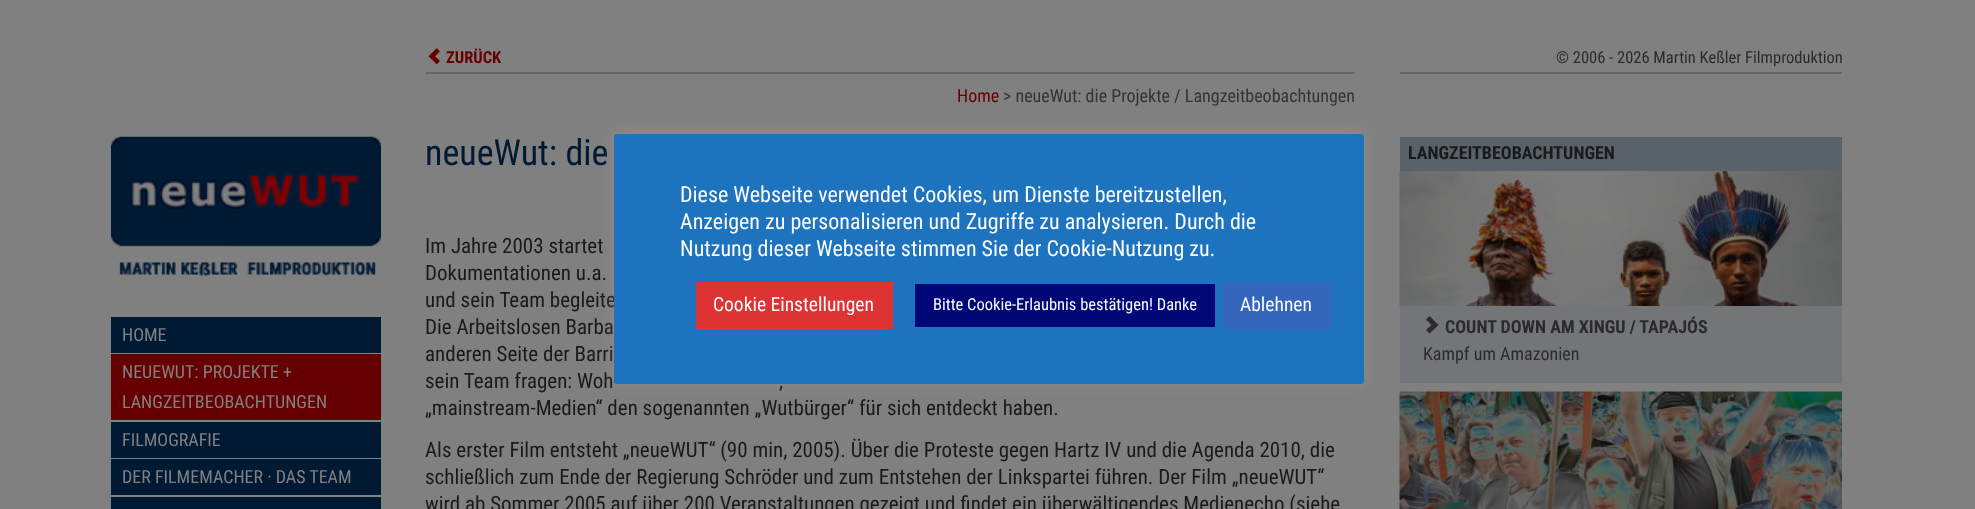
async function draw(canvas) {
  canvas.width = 1975;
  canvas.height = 509;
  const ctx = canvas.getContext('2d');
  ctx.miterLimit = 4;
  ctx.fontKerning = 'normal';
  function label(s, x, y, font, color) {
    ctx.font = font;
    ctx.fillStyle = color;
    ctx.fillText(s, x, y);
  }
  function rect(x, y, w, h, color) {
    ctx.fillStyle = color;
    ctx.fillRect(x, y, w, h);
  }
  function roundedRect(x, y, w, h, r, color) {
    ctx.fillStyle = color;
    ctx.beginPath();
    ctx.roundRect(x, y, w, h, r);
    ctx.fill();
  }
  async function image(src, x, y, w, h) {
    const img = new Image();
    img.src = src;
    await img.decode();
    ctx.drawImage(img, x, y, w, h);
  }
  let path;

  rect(0, 0, 1975, 509, '#808080');
  await image('assets/img1.png', 111, 136, 270, 140);
  rect(111, 317, 270, 36, '#001a34');
  label('HOME', 122, 341, '18px Roboto Condensed', '#808080');
  rect(111, 354, 270, 66, '#600');
  label('NEUEWUT: PROJEKTE +', 122, 378, '18px Roboto Condensed', '#808080');
  label('LANGZEITBEOBACHTUNGEN', 122, 408, '18px Roboto Condensed', '#808080');
  rect(111, 422, 270, 36, '#001a34');
  label('FILMOGRAFIE', 122, 446, '18px Roboto Condensed', '#808080');
  rect(111, 459, 270, 36, '#001a34');
  label('DER FILMEMACHER · DAS TEAM', 122, 483, '18px Roboto Condensed', '#808080');
  rect(111, 497, 270, 12, '#001a34');
  rect(426, 72, 929, 2, '#666');
  await image('assets/img2.png', 428, 48, 12, 17);
  label('ZURÜCK', 446, 63, 'bold 16.5px Roboto Condensed', '#600');
  label('Home', 957, 102, '18px Roboto Condensed', '#600');
  label('> neueWut: die Projekte / Langzeitbeobachtungen', 1003, 102, '18px Roboto Condensed', '#333');
  label('neueWut: die', 425, 165, '36px Roboto Condensed', '#001a34');
  label('Im Jahre 2003 startet', 425, 253, '21px Roboto Condensed', '#1a1a1a');
  label('Dokumentationen u.a.', 425, 280, '21px Roboto Condensed', '#1a1a1a');
  label('und sein Team begleite', 425, 307, '21px Roboto Condensed', '#1a1a1a');
  label('Die Arbeitslosen Barba', 425, 334, '21px Roboto Condensed', '#1a1a1a');
  label('anderen Seite der Barri', 425, 361, '21px Roboto Condensed', '#1a1a1a');
  label('sein Team fragen: Woh', 425, 388, '21px Roboto Condensed', '#1a1a1a');
  label(',', 779, 388, '21px Roboto Condensed', '#1a1a1a');
  label('„mainstream-Medien“ den sogenannten „Wutbürger“ für sich entdeckt haben.', 425, 415, '21px Roboto Condensed', '#1a1a1a');
  label('Als erster Film entsteht „neueWUT“ (90 min, 2005). Über die Proteste gegen Hartz IV und die Agenda 2010, die', 425, 457, '21px Roboto Condensed', '#1a1a1a');
  label('schließlich zum Ende der Regierung Schröder und zum Entstehen der Linkspartei führen. Der Film „neueWUT“', 425, 484, '21px Roboto Condensed', '#1a1a1a');
  label('wird ab Sommer 2005 auf über 200 Veranstaltungen gezeigt und findet ein überwältigendes Medienecho (siehe', 425, 511, '21px Roboto Condensed', '#1a1a1a');
  rect(1400, 72, 442, 2, '#666');
  label('© 2006 - 2026 Martin Keßler Filmproduktion', 1556, 63, '16.5px Roboto Condensed', '#2b2b2b');
  rect(1400, 137, 442, 34, '#596169');
  label('LANGZEITBEOBACHTUNGEN', 1408, 159, 'bold 18px Roboto Condensed', '#1a1a1a');
  rect(1400, 306, 442, 77, '#737578');
  await image('assets/img3.png', 1399, 171, 443, 135);
  ctx.fillStyle = '#2b2b2b';
  path = new Path2D('M1426 330L1431.5 325L1426 319.5L1429.5 316L1438.5 325L1429.5 333.5Z');
  ctx.fill(path);
  label('COUNT DOWN AM XINGU / TAPAJÓS', 1445, 333, 'bold 18px Roboto Condensed', '#2b2b2b');
  label('Kampf um Amazonien', 1423, 360, '18px Roboto Condensed', '#2b2b2b');
  await image('assets/img4.png', 1399, 391, 443, 118);
  ctx.fillStyle = '#acabab4d';
  ctx.filter = 'blur(7.5px)';
  ctx.beginPath();
  ctx.roundRect(614, 132, 750, 251, 3);
  ctx.fill();
  ctx.filter = 'none';
  roundedRect(614, 134, 750, 250, 3, '#1e73be');
  label('Diese Webseite verwendet Cookies, um Dienste bereitzustellen,', 680, 202, '22px Roboto Condensed', '#fcfcfc');
  label('Anzeigen zu personalisieren und Zugriffe zu analysieren. Durch die', 680, 229, '22px Roboto Condensed', '#fcfcfc');
  label('Nutzung dieser Webseite stimmen Sie der Cookie-Nutzung zu.', 680, 256, '22px Roboto Condensed', '#fcfcfc');
  rect(696, 282, 197, 47, '#d33');
  label('Cookie Einstellungen', 713, 311, '19.5px Roboto Condensed', '#fcfcfc');
  rect(915, 284, 300, 43, '#000777');
  label('Bitte Cookie-Erlaubnis bestätigen! Danke', 933, 310, '16.5px Roboto Condensed', '#fcfcfc');
  rect(1223, 282, 108, 47, '#3566bb');
  label('Ablehnen', 1240, 311, '19.5px Roboto Condensed', '#fcfcfc');
}

draw(document.querySelector('canvas'));
